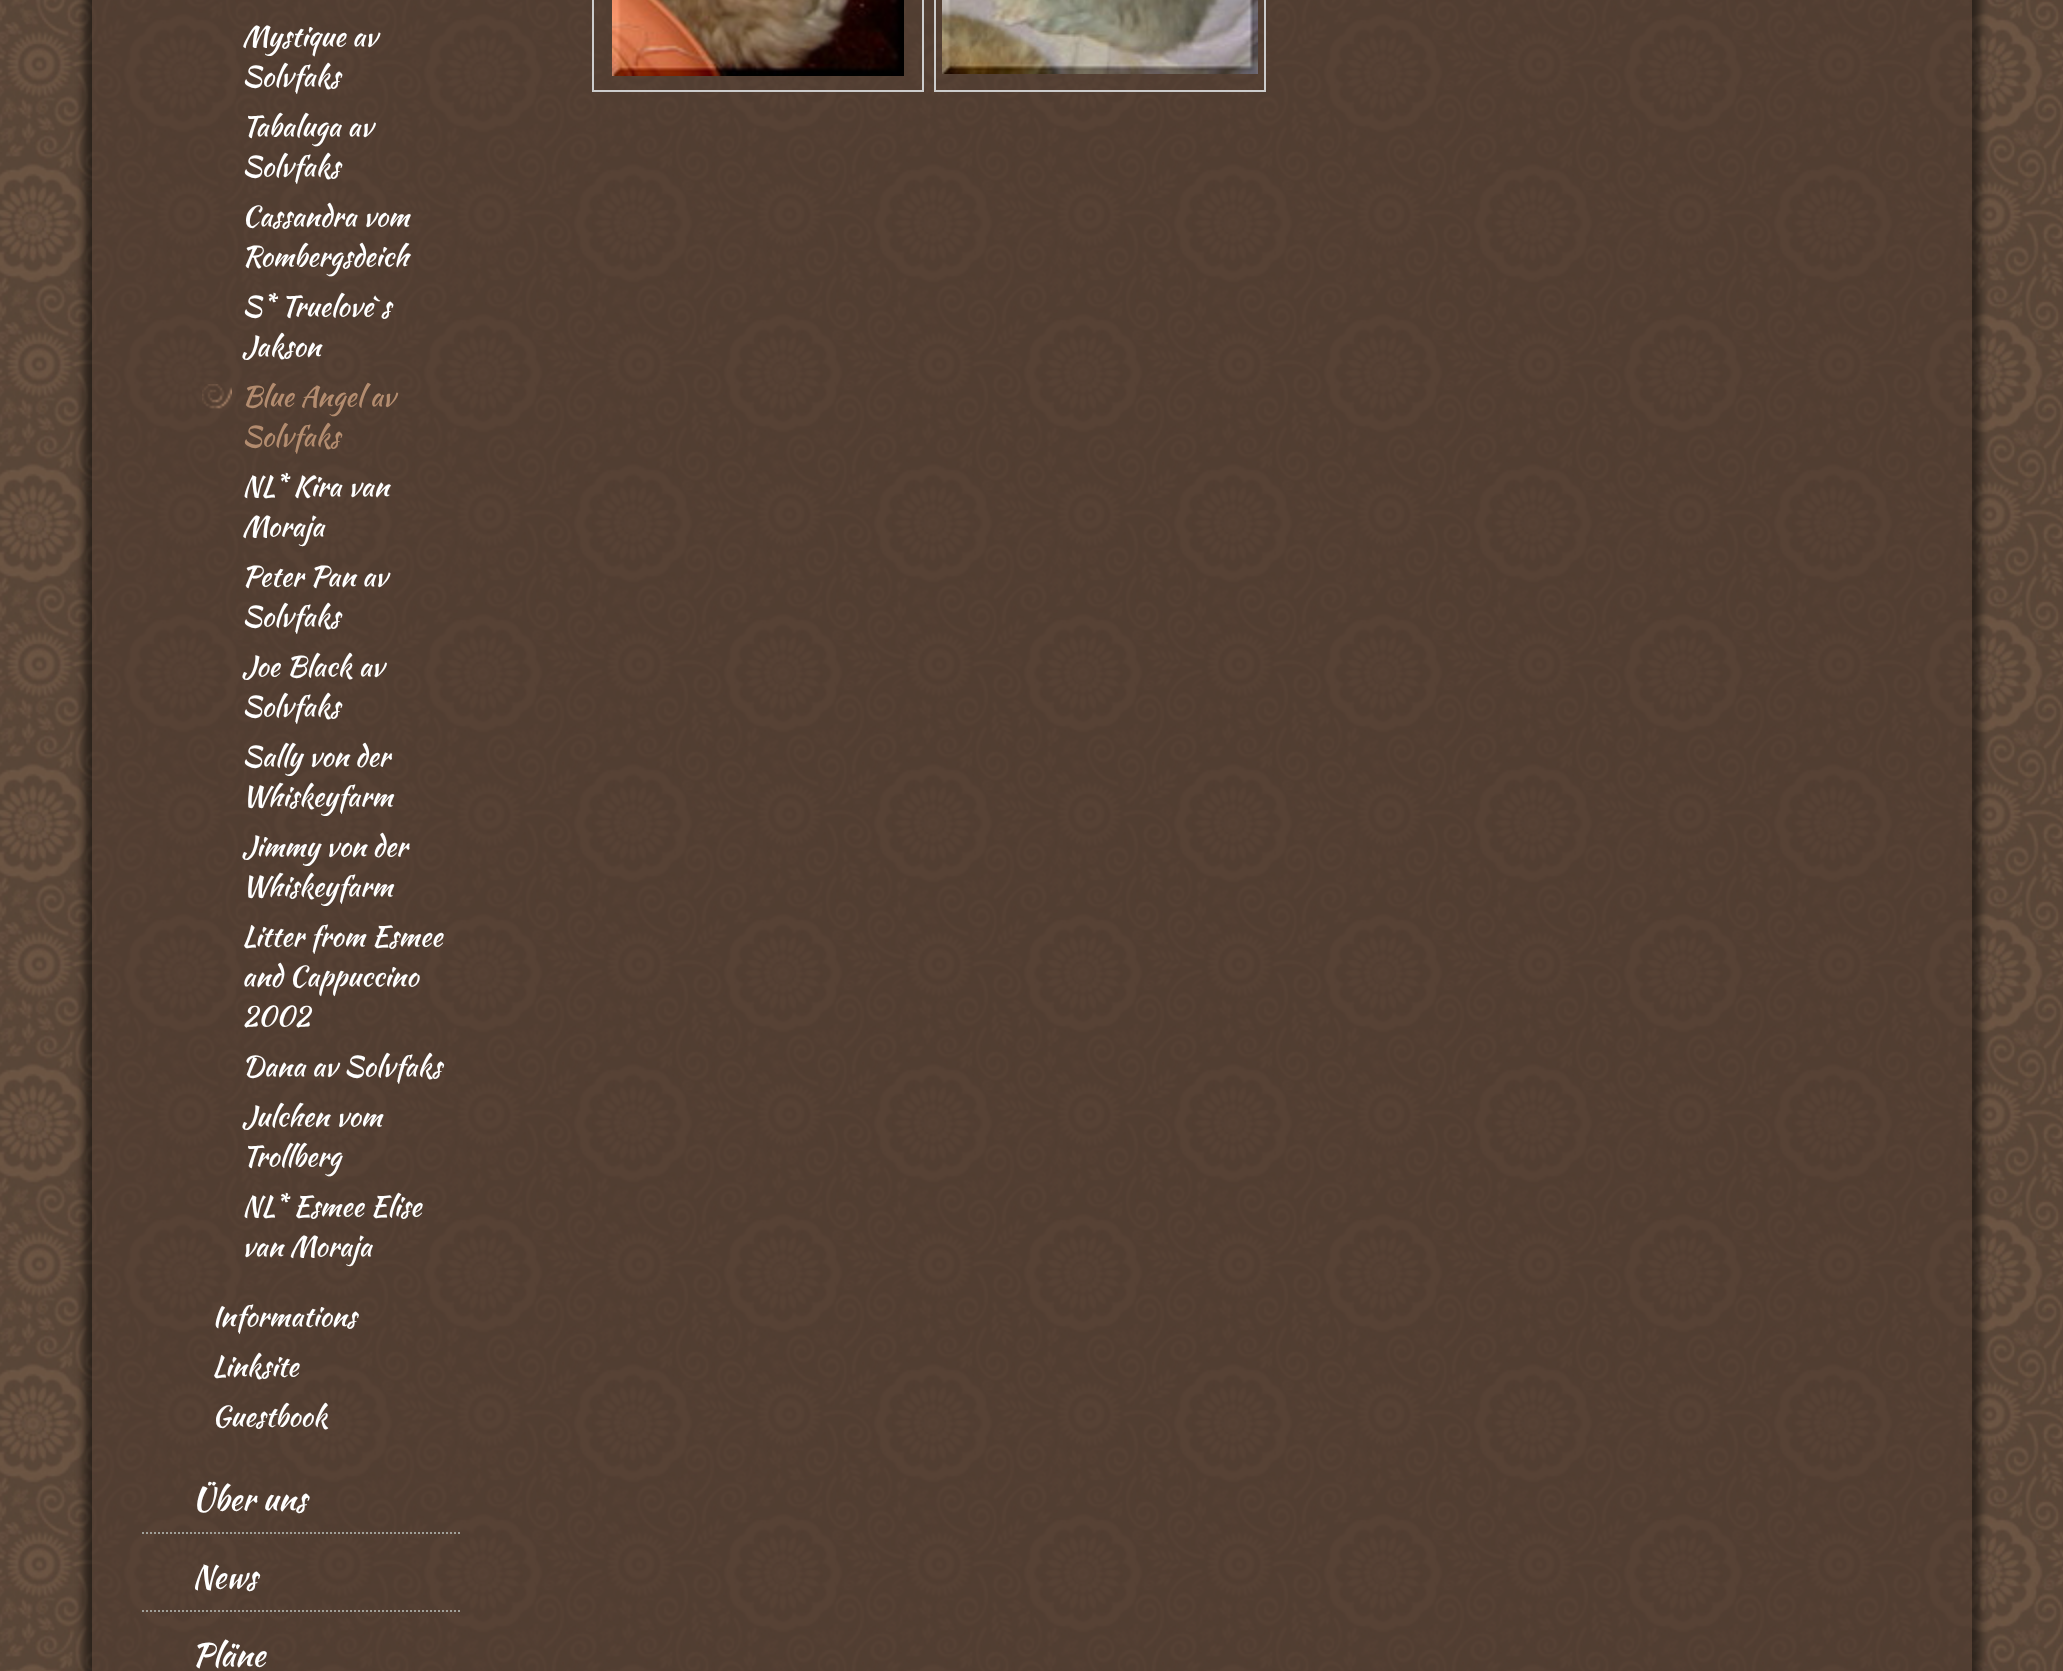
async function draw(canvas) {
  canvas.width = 2063;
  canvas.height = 1671;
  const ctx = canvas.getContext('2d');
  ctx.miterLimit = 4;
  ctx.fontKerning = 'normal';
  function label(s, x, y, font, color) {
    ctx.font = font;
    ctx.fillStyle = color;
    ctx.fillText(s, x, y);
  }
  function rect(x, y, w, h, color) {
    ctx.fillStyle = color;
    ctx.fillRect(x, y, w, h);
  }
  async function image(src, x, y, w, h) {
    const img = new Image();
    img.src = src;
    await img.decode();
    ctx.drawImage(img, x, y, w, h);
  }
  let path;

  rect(0, 0, 2063, 1671, '#fff');
  await image('assets/img1.png', 0, 0, 2063, 1671);
  ctx.save();
  path = new Path2D('M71 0H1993V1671H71ZM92-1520H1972V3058H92Z');
  ctx.clip(path, 'evenodd');
  ctx.fillStyle = '#00000080';
  ctx.filter = 'blur(4px)';
  ctx.beginPath();
  ctx.rect(84, -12, 1896, 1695);
  ctx.fill();
  ctx.filter = 'none';
  ctx.restore();
  label('Mystique av', 242, 46, '28px Kaushan Script', '#fff');
  label('Solvfaks', 242, 86, '28px Kaushan Script', '#fff');
  label('Tabaluga av', 242, 136, '28px Kaushan Script', '#fff');
  label('Solvfaks', 242, 176, '28px Kaushan Script', '#fff');
  label('Cassandra vom', 242, 226, '28px Kaushan Script', '#fff');
  label('Rombergsdeich', 242, 266, '28px Kaushan Script', '#fff');
  label('S* Truelove`s', 242, 316, '28px Kaushan Script', '#fff');
  label('Jakson', 242, 356, '28px Kaushan Script', '#fff');
  await image('assets/img2.png', 202, 384, 30, 25);
  label('Blue Angel av', 242, 406, '28px Kaushan Script', '#b38c6f');
  label('Solvfaks', 242, 446, '28px Kaushan Script', '#b38c6f');
  label('NL* Kira van', 242, 496, '28px Kaushan Script', '#fff');
  label('Moraja', 242, 536, '28px Kaushan Script', '#fff');
  label('Peter Pan av', 242, 586, '28px Kaushan Script', '#fff');
  label('Solvfaks', 242, 626, '28px Kaushan Script', '#fff');
  label('Joe Black av', 242, 676, '28px Kaushan Script', '#fff');
  label('Solvfaks', 242, 716, '28px Kaushan Script', '#fff');
  label('Sally von der', 242, 766, '28px Kaushan Script', '#fff');
  label('Whiskeyfarm', 242, 806, '28px Kaushan Script', '#fff');
  label('Jimmy von der', 242, 856, '28px Kaushan Script', '#fff');
  label('Whiskeyfarm', 242, 896, '28px Kaushan Script', '#fff');
  label('Litter from Esmee', 242, 946, '28px Kaushan Script', '#fff');
  label('and Cappuccino', 242, 986, '28px Kaushan Script', '#fff');
  label('2002', 242, 1026, '28px Kaushan Script', '#fff');
  label('Dana av Solvfaks', 242, 1076, '28px Kaushan Script', '#fff');
  label('Julchen vom', 242, 1126, '28px Kaushan Script', '#fff');
  label('Trollberg', 242, 1166, '28px Kaushan Script', '#fff');
  label('NL* Esmee Elise', 242, 1216, '28px Kaushan Script', '#fff');
  label('van Moraja', 242, 1256, '28px Kaushan Script', '#fff');
  label('Informations', 212, 1326, '28px Kaushan Script', '#fff');
  label('Linksite', 212, 1376, '28px Kaushan Script', '#fff');
  label('Guestbook', 212, 1426, '28px Kaushan Script', '#fff');
  path = new Path2D('M142 1533H462');
  ctx.strokeStyle = '#a1a099';
  ctx.lineWidth = 2;
  ctx.setLineDash([2, 2]);
  ctx.stroke(path);
  label('Über uns', 192, 1510, '32px Kaushan Script', '#fff');
  path = new Path2D('M142 1611H462');
  ctx.stroke(path);
  label('News', 192, 1588, '32px Kaushan Script', '#fff');
  label('Pläne', 192, 1666, '32px Kaushan Script', '#fff');
  ctx.strokeStyle = '#ccc';
  ctx.setLineDash([]);
  ctx.strokeRect(593, -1, 330, 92);
  await image('assets/img3.png', 612, 0, 292, 76);
  ctx.strokeRect(935, -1, 330, 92);
  await image('assets/img4.png', 942, 0, 316, 74);
}

draw(document.querySelector('canvas'));
